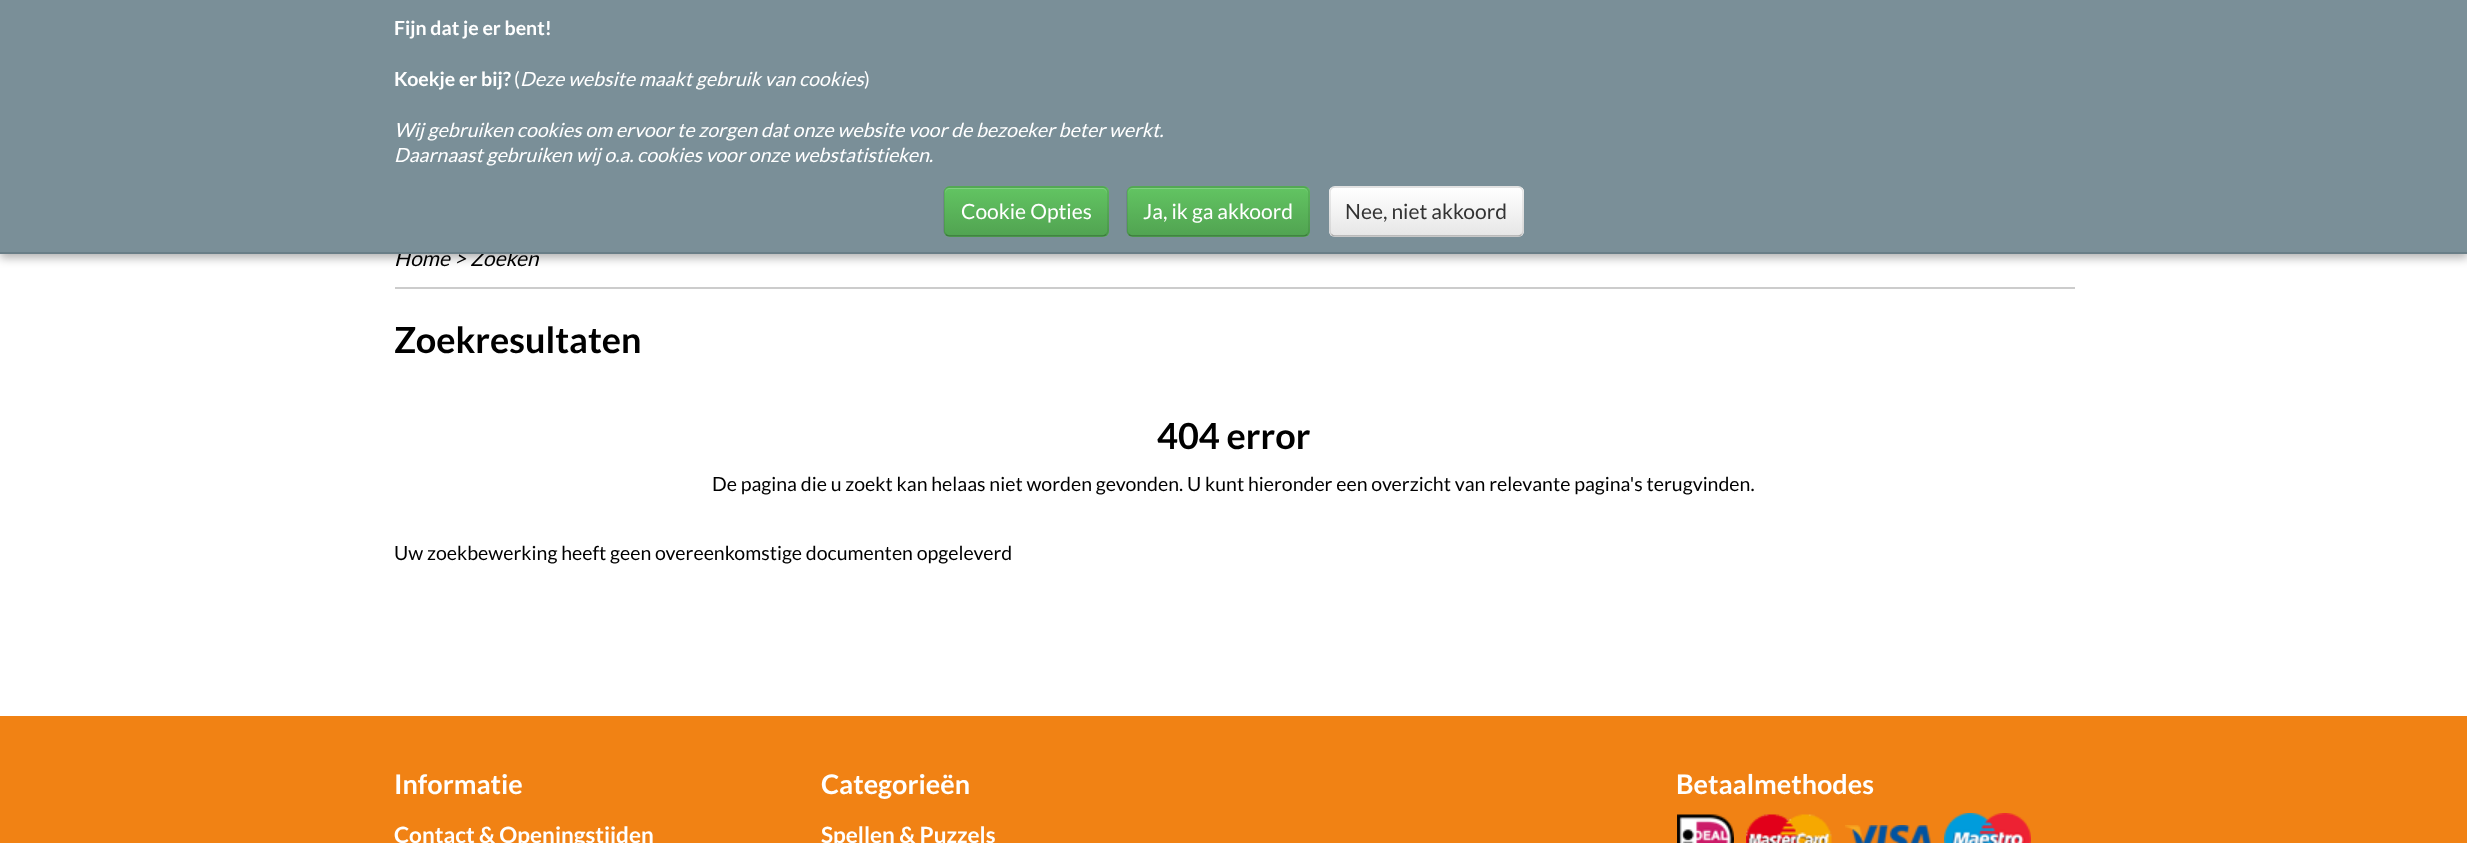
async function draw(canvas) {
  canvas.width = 2467;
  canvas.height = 843;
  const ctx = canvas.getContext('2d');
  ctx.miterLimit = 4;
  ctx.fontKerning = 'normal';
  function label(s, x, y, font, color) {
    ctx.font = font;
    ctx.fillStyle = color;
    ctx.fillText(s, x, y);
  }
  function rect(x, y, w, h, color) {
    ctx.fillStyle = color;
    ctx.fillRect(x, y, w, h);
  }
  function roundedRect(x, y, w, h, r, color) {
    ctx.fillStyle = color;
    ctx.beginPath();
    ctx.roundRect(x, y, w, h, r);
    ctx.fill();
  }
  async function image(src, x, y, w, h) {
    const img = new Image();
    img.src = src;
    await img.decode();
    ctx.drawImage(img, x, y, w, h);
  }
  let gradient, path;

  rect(0, 0, 2467, 843, '#fff');
  ctx.fillStyle = '#0000004d';
  ctx.filter = 'blur(5px)';
  ctx.beginPath();
  ctx.rect(0, 5, 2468, 253);
  ctx.fill();
  ctx.filter = 'none';
  label('Home > Zoeken', 394, 266, 'italic 21px Lato', '#000');
  rect(0, 0, 2467, 252, '#7a8f98');
  rect(0, 252, 2467, 2, '#697e87');
  label('Fijn dat je er bent!', 394, 35, 'bold 19.5px Lato', '#fff');
  label('Koekje er bij?', 394, 86, 'bold 19.5px Lato', '#fff');
  label('(', 514, 86, '19.5px Lato', '#fff');
  label('Deze website maakt gebruik van cookies', 520, 86, 'italic 19.5px Lato', '#fff');
  label(')', 864, 86, '19.5px Lato', '#fff');
  label('Wij gebruiken cookies om ervoor te zorgen dat onze website voor de bezoeker beter werkt.', 394, 137, 'italic 19.5px Lato', '#fff');
  label('Daarnaast gebruiken wij o.a. cookies voor onze webstatistieken.', 394, 162, 'italic 19.5px Lato', '#fff');
  roundedRect(944, 186, 165, 51, 6, '#5bb75b');
  ctx.save();
  ctx.beginPath();
  ctx.roundRect(944, 186, 165, 51, 6);
  ctx.clip();
  gradient = ctx.createLinearGradient(1026, 188, 1026, 236);
  gradient.addColorStop(0, '#62c462');
  gradient.addColorStop(1, '#51a351');
  ctx.fillStyle = gradient;
  ctx.fillRect(944, 188, 165, 48);
  ctx.restore();
  ctx.fillStyle = '#81d081';
  path = new Path2D('M950 189H1102C1105 189 1107 191 1107 194V193C1107 190 1105 188 1102 188H950C947 188 945 190 945 193V194C945 191 947 189 950 189Z');
  ctx.fill(path);
  path = new Path2D('M1106 234.5C1105 235.5 1104 236 1102.5 236H949.5C948 236 947 235.5 946 234.5');
  ctx.strokeStyle = '#00000040';
  ctx.lineWidth = 1.5;
  ctx.stroke(path);
  path = new Path2D('M946 234.5C945 233.5 944 232.5 944 231V192C944 190.5 945 189.5 946 188.5C947 187.5 948 187 949.5 187H1102.5C1104 187 1105 187.5 1106 188.5C1107 189.5 1108 190.5 1108 192V231C1108 232.5 1107 233.5 1106 234.5');
  ctx.strokeStyle = '#0000001a';
  ctx.stroke(path);
  label('Cookie Opties', 961, 219, '21px Lato', '#fff');
  roundedRect(1127, 186, 183, 51, 6, '#5bb75b');
  ctx.save();
  ctx.beginPath();
  ctx.roundRect(1127, 186, 183, 51, 6);
  ctx.clip();
  gradient = ctx.createLinearGradient(1218, 188, 1218, 236);
  gradient.addColorStop(0, '#62c462');
  gradient.addColorStop(1, '#51a351');
  ctx.fillStyle = gradient;
  ctx.fillRect(1127, 188, 183, 48);
  ctx.restore();
  ctx.fillStyle = '#81d081';
  path = new Path2D('M1132 189H1304C1306 189 1308 191 1308 194C1308 191 1307 189 1304 188H1133C1130 188 1128 191 1128 194C1128 191 1130 189 1132 189Z');
  ctx.fill(path);
  path = new Path2D('M1307 234.5C1306 235.5 1305 236 1303.5 236H1132.5C1131 236 1130 235.5 1129 234.5');
  ctx.strokeStyle = '#00000040';
  ctx.stroke(path);
  path = new Path2D('M1129 234.5C1128 233.5 1127 232.5 1127 231V192C1127 190.5 1128 189.5 1129 188.5C1130 187.5 1131 187 1132.5 187H1303.5C1305 187 1306 187.5 1307 188.5C1308 189.5 1309 190.5 1309 192V231C1309 232.5 1308 233.5 1307 234.5');
  ctx.strokeStyle = '#0000001a';
  ctx.stroke(path);
  label('Ja, ik ga akkoord', 1143, 219, '21px Lato', '#fff');
  roundedRect(1329, 186, 195, 51, 6, '#f5f5f5');
  ctx.save();
  ctx.beginPath();
  ctx.roundRect(1329, 186, 195, 51, 6);
  ctx.clip();
  gradient = ctx.createLinearGradient(1427, 188, 1427, 236);
  gradient.addColorStop(0, '#fff');
  gradient.addColorStop(1, '#e6e6e6');
  ctx.fillStyle = gradient;
  ctx.fillRect(1329, 188, 195, 48);
  ctx.restore();
  ctx.fillStyle = '#ffffff33';
  path = new Path2D('M1335 189H1518C1520 189 1522 191 1522 194V232L1521 235C1522 234 1523 232 1523 231V193C1523 190 1521 188 1518 188H1336C1334 188 1333 189 1332 190Z');
  ctx.fill(path);
  path = new Path2D('M1521.5 234.5C1520.5 235.5 1519.5 236 1518 236H1335C1333.5 236 1332.5 235.5 1331.5 234.5');
  ctx.strokeStyle = '#00000040';
  ctx.stroke(path);
  path = new Path2D('M1331.5 234.5C1330.5 233.5 1330 232.5 1330 231V192C1330 190.5 1330.5 189.5 1331.5 188.5C1332.5 187.5 1333.5 187 1335 187H1518C1519.5 187 1520.5 187.5 1521.5 188.5C1522.5 189.5 1523 190.5 1523 192V231C1523 232.5 1522.5 233.5 1521.5 234.5');
  ctx.strokeStyle = '#0000001a';
  ctx.stroke(path);
  label('Nee, niet akkoord', 1345, 219, '21px Lato', '#333');
  rect(395, 287, 1680, 2, '#ccc');
  label('Zoekresultaten', 394, 353, 'bold 36px Lato', '#000');
  label('404 error', 1157, 449, 'bold 36px Lato', '#000');
  label('De pagina die u zoekt kan helaas niet worden gevonden. U kunt hieronder een overzicht van relevante pagina\'s terugvinden.', 712, 491, '19.5px Lato', '#000');
  label('Uw zoekbewerking heeft geen overeenkomstige documenten opgeleverd', 394, 560, '19.5px Lato', '#000');
  rect(0, 716, 2467, 127, '#f18214');
  label('Informatie', 394, 794, 'bold 27px Lato', '#fff');
  label('Contact & Openingstijden', 394, 843, 'bold 22.5px Lato', '#fff');
  label('Categorieën', 821, 794, 'bold 27px Lato', '#fff');
  label('Spellen & Puzzels', 821, 843, 'bold 22.5px Lato', '#fff');
  label('Betaalmethodes', 1676, 794, 'bold 27px Lato', '#fff');
  await image('assets/img1.png', 1677, 814, 57, 29);
  await image('assets/img2.png', 1746, 814, 86, 29);
  await image('assets/img3.png', 1845, 825, 87, 18);
  await image('assets/img4.png', 1944, 813, 87, 30);
}

draw(document.querySelector('canvas'));
